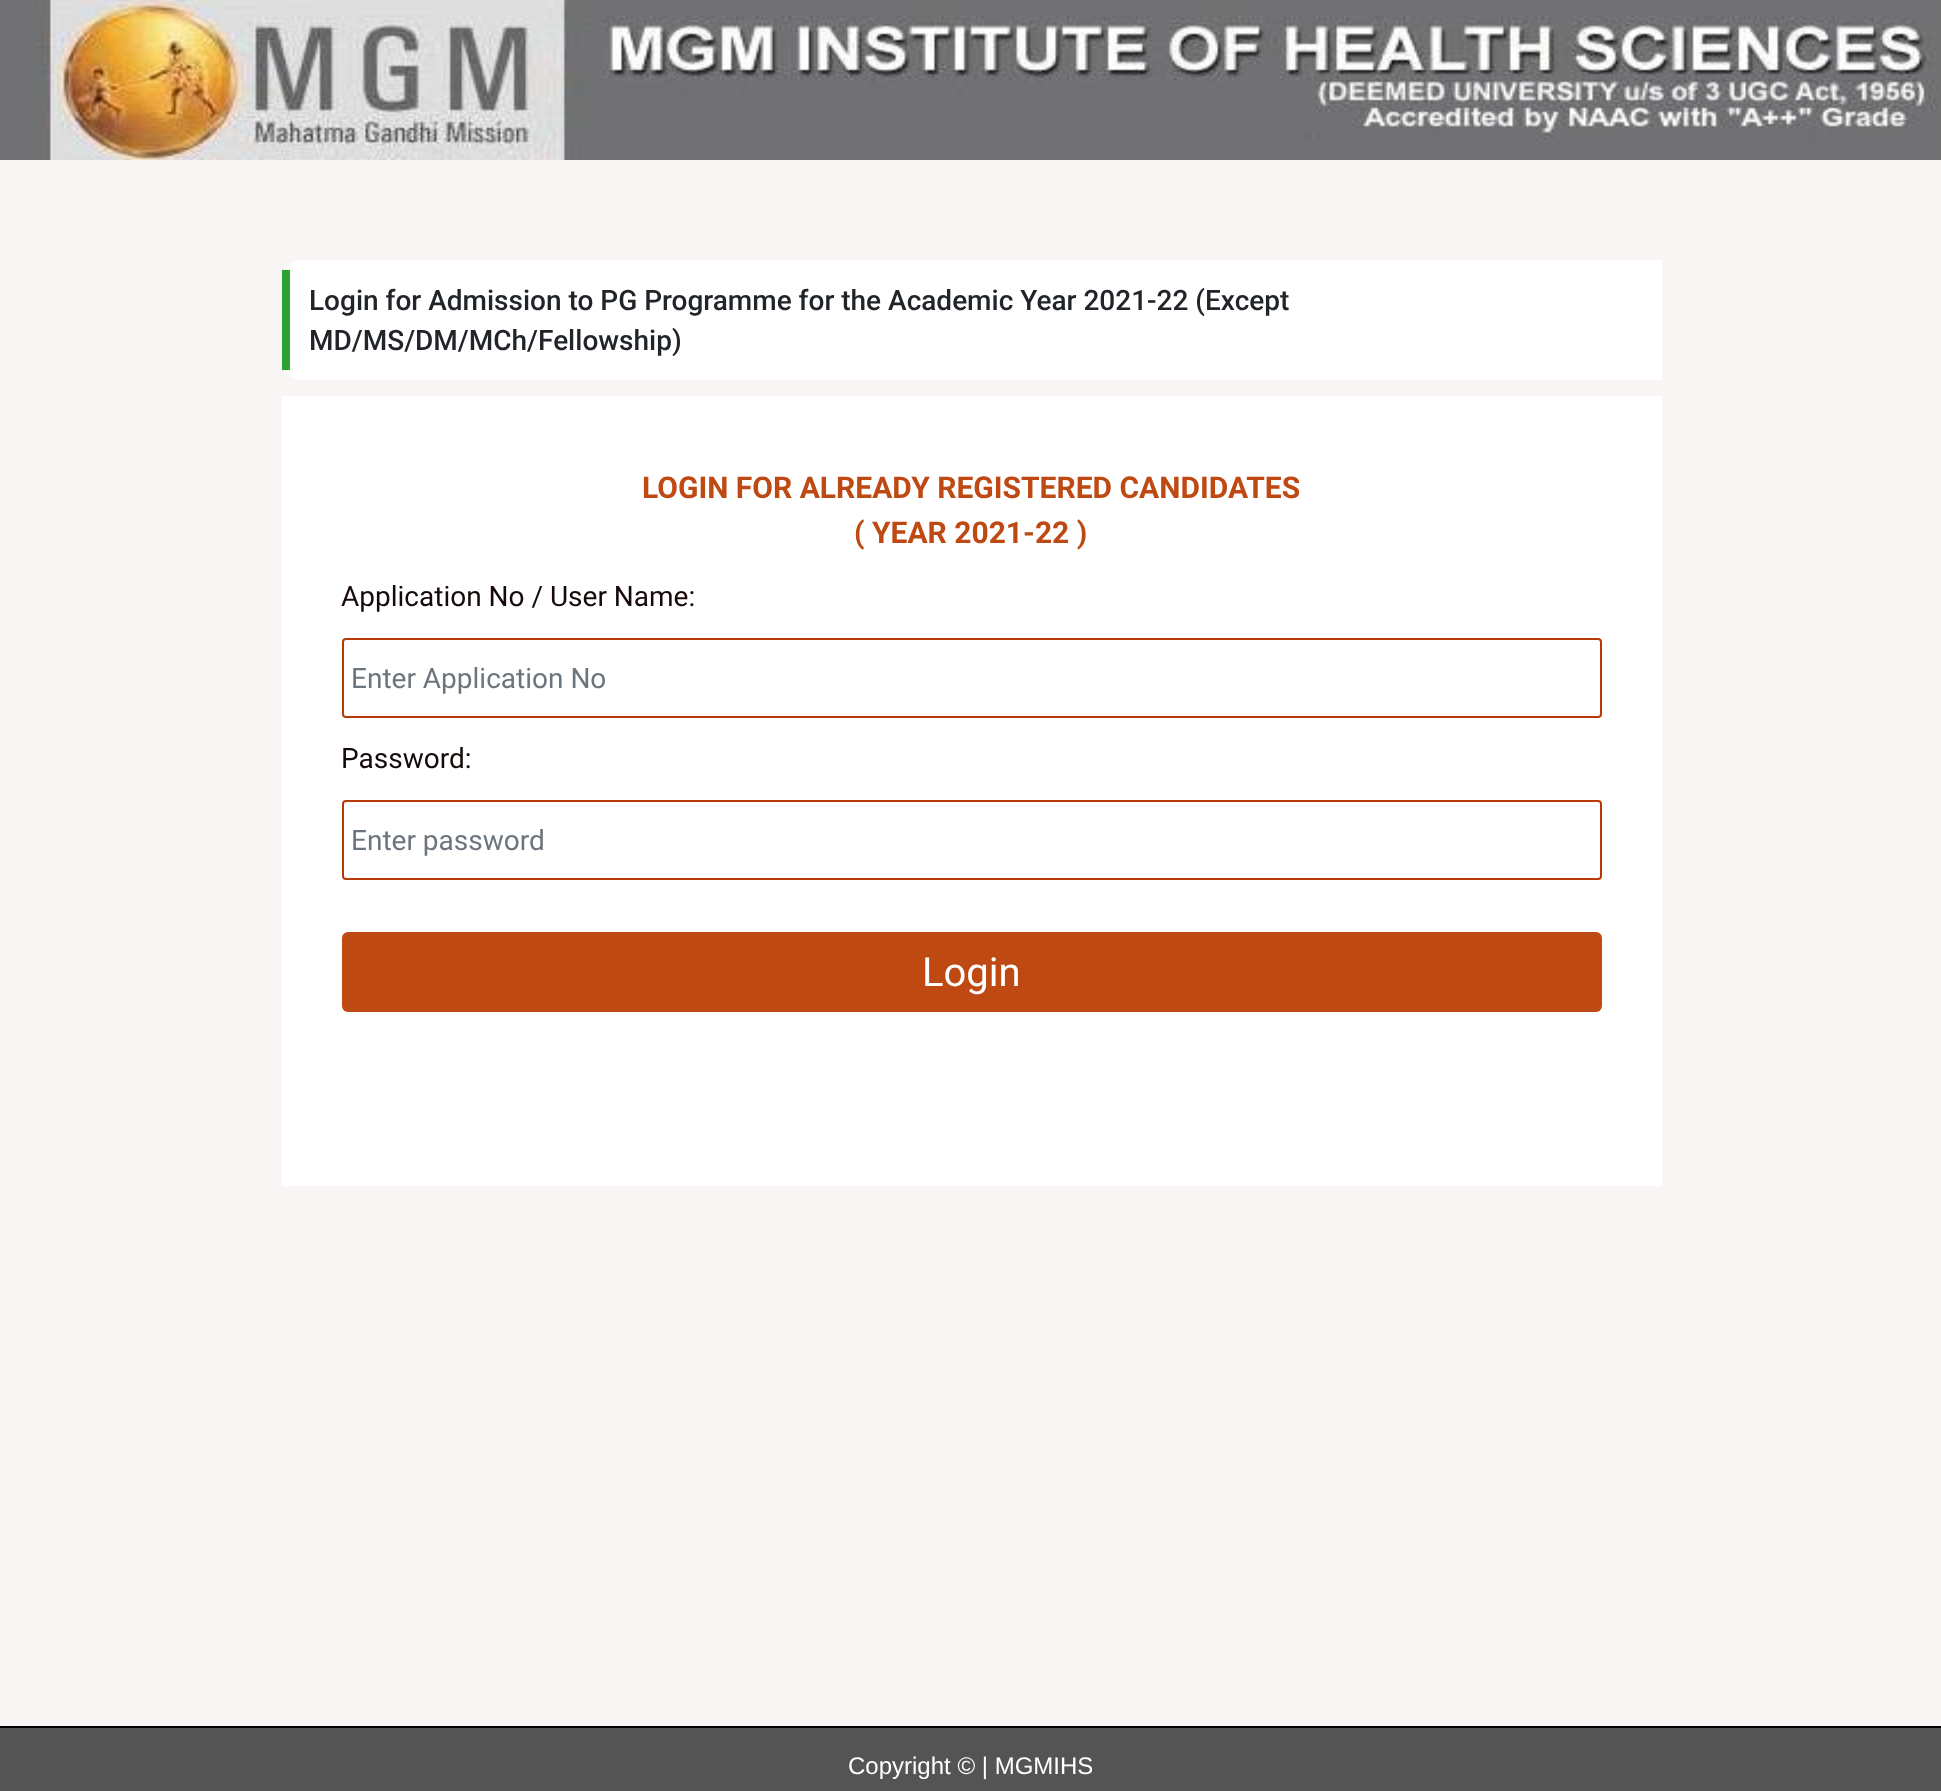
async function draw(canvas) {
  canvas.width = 1941;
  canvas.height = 1791;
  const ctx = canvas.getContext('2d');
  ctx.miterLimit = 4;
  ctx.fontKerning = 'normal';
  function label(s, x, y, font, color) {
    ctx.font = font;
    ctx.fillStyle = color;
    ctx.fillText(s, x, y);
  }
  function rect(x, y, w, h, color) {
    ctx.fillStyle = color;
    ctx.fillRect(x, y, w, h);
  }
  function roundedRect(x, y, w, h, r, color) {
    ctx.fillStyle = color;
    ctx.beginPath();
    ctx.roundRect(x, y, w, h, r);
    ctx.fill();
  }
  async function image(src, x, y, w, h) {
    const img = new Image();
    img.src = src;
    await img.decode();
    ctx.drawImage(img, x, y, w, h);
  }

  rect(0, 0, 1941, 1791, '#f9f5f5');
  await image('assets/img1.png', 0, 0, 1941, 160);
  ctx.fillStyle = '#fff';
  ctx.beginPath();
  ctx.roundRect(282, 260, 1380, 120, [20, 0, 0, 20]);
  ctx.fill();
  rect(282, 270, 8, 100, '#2aa32f');
  label('Login for Admission to PG Programme for the Academic Year 2021-22 (Except', 309, 310, '500 28px Roboto', '#212529');
  label('MD/MS/DM/MCh/Fellowship)', 309, 350, '500 28px Roboto', '#212529');
  rect(282, 396, 1380, 790, '#fff');
  label('LOGIN FOR ALREADY REGISTERED CANDIDATES', 642, 498, 'bold 30px Roboto', '#be4912');
  label('( YEAR 2021-22 )', 854, 543, 'bold 30px Roboto', '#be4912');
  label('Application No / User Name:', 341, 606, '28px Roboto', '#170909');
  ctx.beginPath();
  ctx.roundRect(343, 639, 1258, 78, 3);
  ctx.strokeStyle = '#b83806';
  ctx.lineWidth = 2;
  ctx.stroke();
  label('Enter Application No', 351, 688, '28px Roboto', '#6c757d');
  label('Password:', 341, 768, '28px Roboto', '#170909');
  ctx.beginPath();
  ctx.roundRect(343, 801, 1258, 78, 3);
  ctx.stroke();
  label('Enter password', 351, 850, '28px Roboto', '#6c757d');
  roundedRect(342, 932, 1260, 80, 6, '#be4912');
  label('Login', 922, 986, '40px Roboto', '#fff');
  rect(0, 1728, 1941, 63, '#545454');
  rect(0, 1726, 1941, 2, '#000');
  label('Copyright © | MGMIHS', 848, 1774, '24px Liberation Sans', '#fff');
}

draw(document.querySelector('canvas'));
